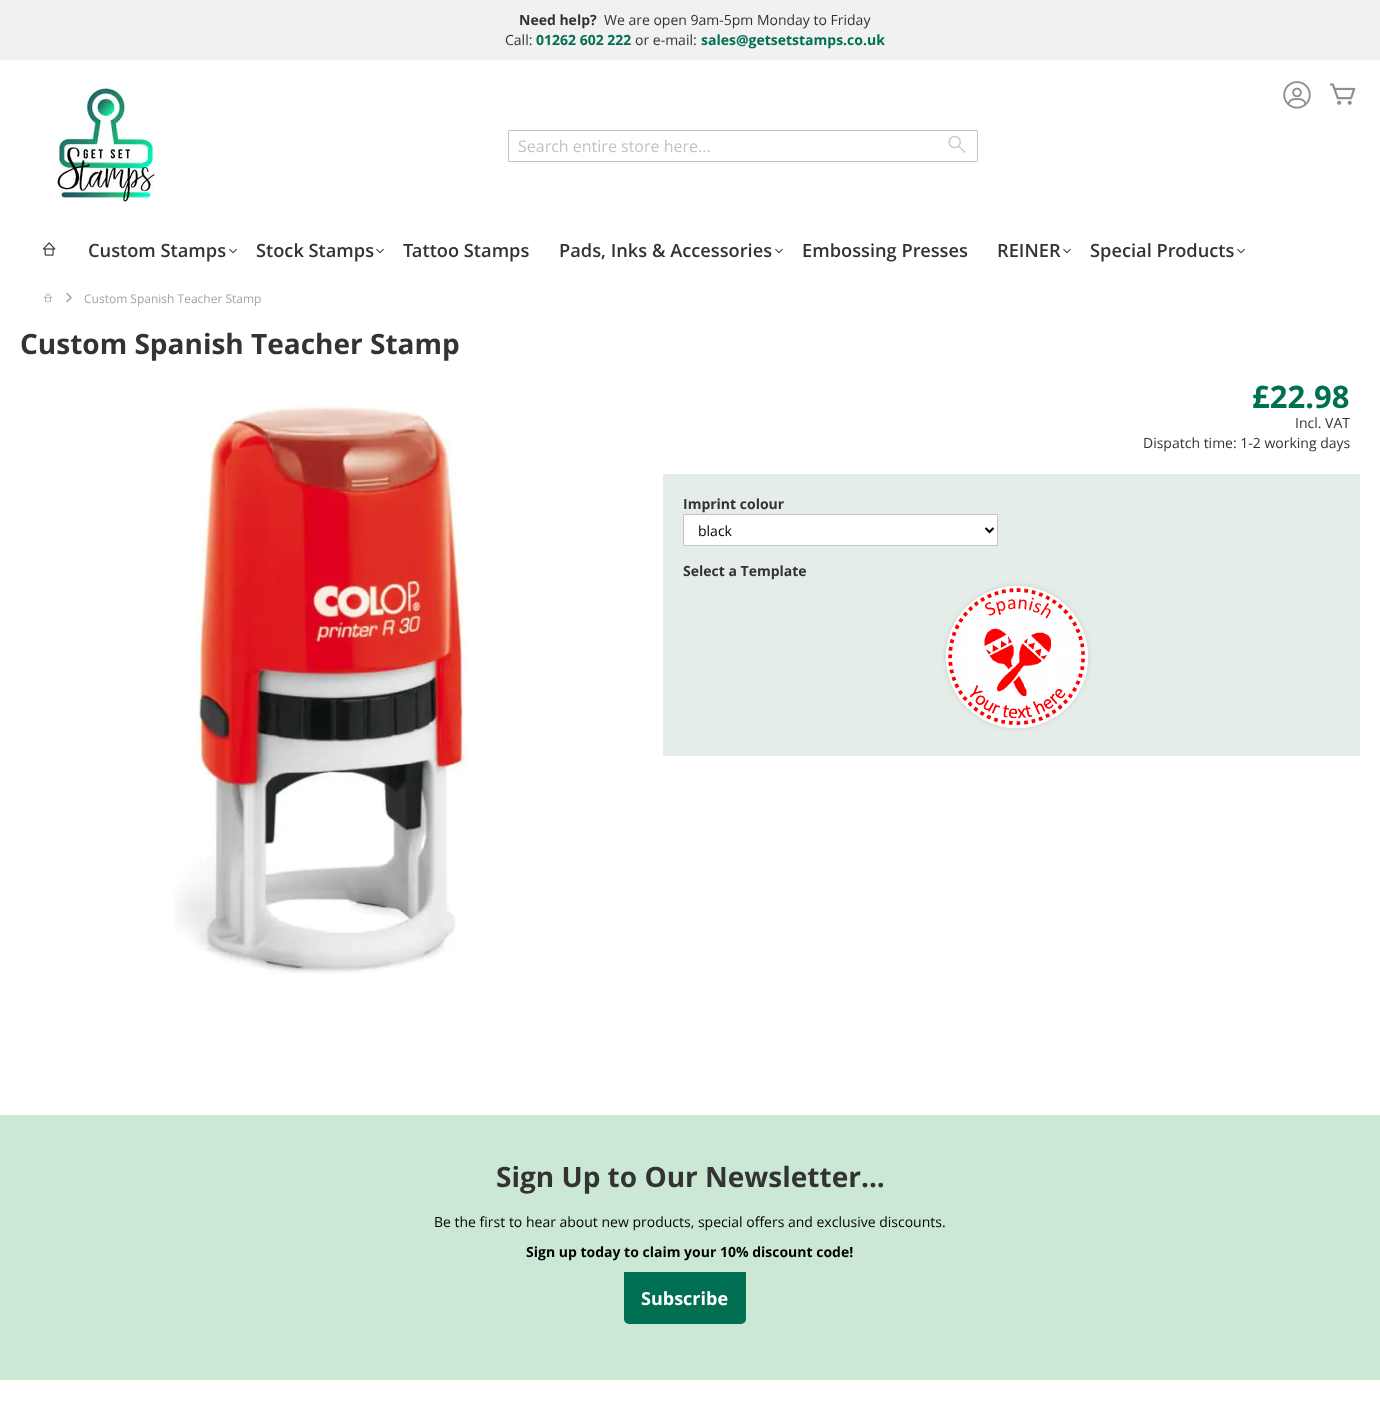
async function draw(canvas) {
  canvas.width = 1380;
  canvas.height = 1428;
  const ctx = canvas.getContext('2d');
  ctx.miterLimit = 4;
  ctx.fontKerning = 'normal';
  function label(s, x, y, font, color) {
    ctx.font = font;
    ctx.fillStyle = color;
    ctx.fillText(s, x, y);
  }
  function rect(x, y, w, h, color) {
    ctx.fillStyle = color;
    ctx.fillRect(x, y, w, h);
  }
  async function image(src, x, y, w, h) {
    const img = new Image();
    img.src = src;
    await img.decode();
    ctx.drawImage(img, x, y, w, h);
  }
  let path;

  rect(0, 0, 1380, 1428, '#fff');
  rect(0, 0, 1380, 60, '#f1f1f1');
  label('Need help?', 519, 25, 'bold 14px Open Sans', '#333');
  label('We are open 9am-5pm Monday to Friday', 604, 25, '14px Open Sans', '#333');
  label('Call:', 505, 45, '14px Open Sans', '#333');
  label('01262 602 222', 536, 45, 'bold 14px Open Sans', '#006f52');
  label('or e-mail:', 635, 45, '14px Open Sans', '#333');
  label('sales@getsetstamps.co.uk', 701, 45, 'bold 14px Open Sans', '#006f52');
  await image('assets/img1.png', 57, 87, 101, 117);
  ctx.beginPath();
  ctx.roundRect(508.5, 130.5, 469, 31, 0.5);
  ctx.strokeStyle = '#c2c2c2';
  ctx.stroke();
  label('Search entire store here...', 518, 152, '16px Open Sans', '#c2c2c2');
  await image('assets/img2.png', 948, 135, 18, 18);
  await image('assets/img3.png', 1283, 81, 28, 28);
  await image('assets/img4.png', 1329, 83, 27, 22);
  await image('assets/img5.png', 42, 242, 14, 14);
  label('Custom Stamps', 88, 257, '600 18.25px Open Sans', '#333');
  await image('assets/img6.png', 229, 248, 8, 6);
  label('Stock Stamps', 256, 257, '600 18.25px Open Sans', '#333');
  await image('assets/img6.png', 376, 248, 8, 6);
  label('Tattoo Stamps', 403, 257, '600 18.25px Open Sans', '#333');
  label('Pads, Inks & Accessories', 559, 257, '600 18.25px Open Sans', '#333');
  await image('assets/img6.png', 775, 248, 8, 6);
  label('Embossing Presses', 802, 257, '600 18.25px Open Sans', '#333');
  label('REINER', 997, 257, '600 18.25px Open Sans', '#333');
  await image('assets/img6.png', 1063, 248, 8, 6);
  label('Special Products', 1090, 257, '600 18.25px Open Sans', '#333');
  await image('assets/img6.png', 1237, 248, 8, 6);
  await image('assets/img7.png', 43, 293, 10, 10);
  await image('assets/img8.png', 66, 292, 6, 11);
  label('Custom Spanish Teacher Stamp', 84, 303, '12px Open Sans', '#a3a3a3');
  label('Custom Spanish Teacher Stamp', 20, 354, 'bold 28px Open Sans', '#333');
  await image('assets/img9.png', 174, 406, 293, 568);
  label('£22.98', 1252, 408, 'bold 31px Open Sans', '#006f52');
  label('Incl. VAT', 1295, 428, '14px Open Sans', '#333');
  label('Dispatch time: 1-2 working days', 1143, 448, '14px Open Sans', '#333');
  rect(663, 474, 697, 282, '#e4ede7');
  label('Imprint colour', 683, 509, 'bold 14px Open Sans', '#333');
  ctx.fillStyle = '#fff';
  ctx.beginPath();
  ctx.roundRect(683.5, 514.5, 314, 31, 0.5);
  ctx.fill();
  ctx.stroke();
  path = new Path2D('M985.5 528L989.5 532L993.5 528');
  ctx.strokeStyle = '#000';
  ctx.lineWidth = 2;
  ctx.stroke(path);
  label('black', 698, 536, '14px Open Sans', '#000');
  label('Select a Template', 683, 576, 'bold 14px Open Sans', '#333');
  ctx.fillStyle = '#ccc';
  ctx.filter = 'blur(2.5px)';
  ctx.beginPath();
  ctx.roundRect(946, 586, 142, 142, 71);
  ctx.fill();
  ctx.filter = 'none';
  ctx.fillStyle = '#fff';
  ctx.beginPath();
  ctx.arc(1017, 657, 71, 0, 2 * Math.PI);
  ctx.fill();
  await image('assets/img10.png', 946, 586, 142, 142);
  rect(0, 1115, 1380, 265, '#cae8d4');
  label('Sign Up to Our Newsletter...', 496, 1187, 'bold 28px Open Sans', '#333');
  label('Be the first to hear about new products, special offers and exclusive discounts.', 434, 1227, '14px Open Sans', '#000');
  label('Sign up today to claim your 10% discount code!', 526, 1257, 'bold 14px Open Sans', '#000');
  ctx.fillStyle = '#006f52';
  ctx.beginPath();
  ctx.roundRect(624, 1272, 122, 52, [0, 0, 5, 5]);
  ctx.fill();
  label('Subscribe', 641, 1305, 'bold 18px Open Sans', '#fff');
}

draw(document.querySelector('canvas'));
